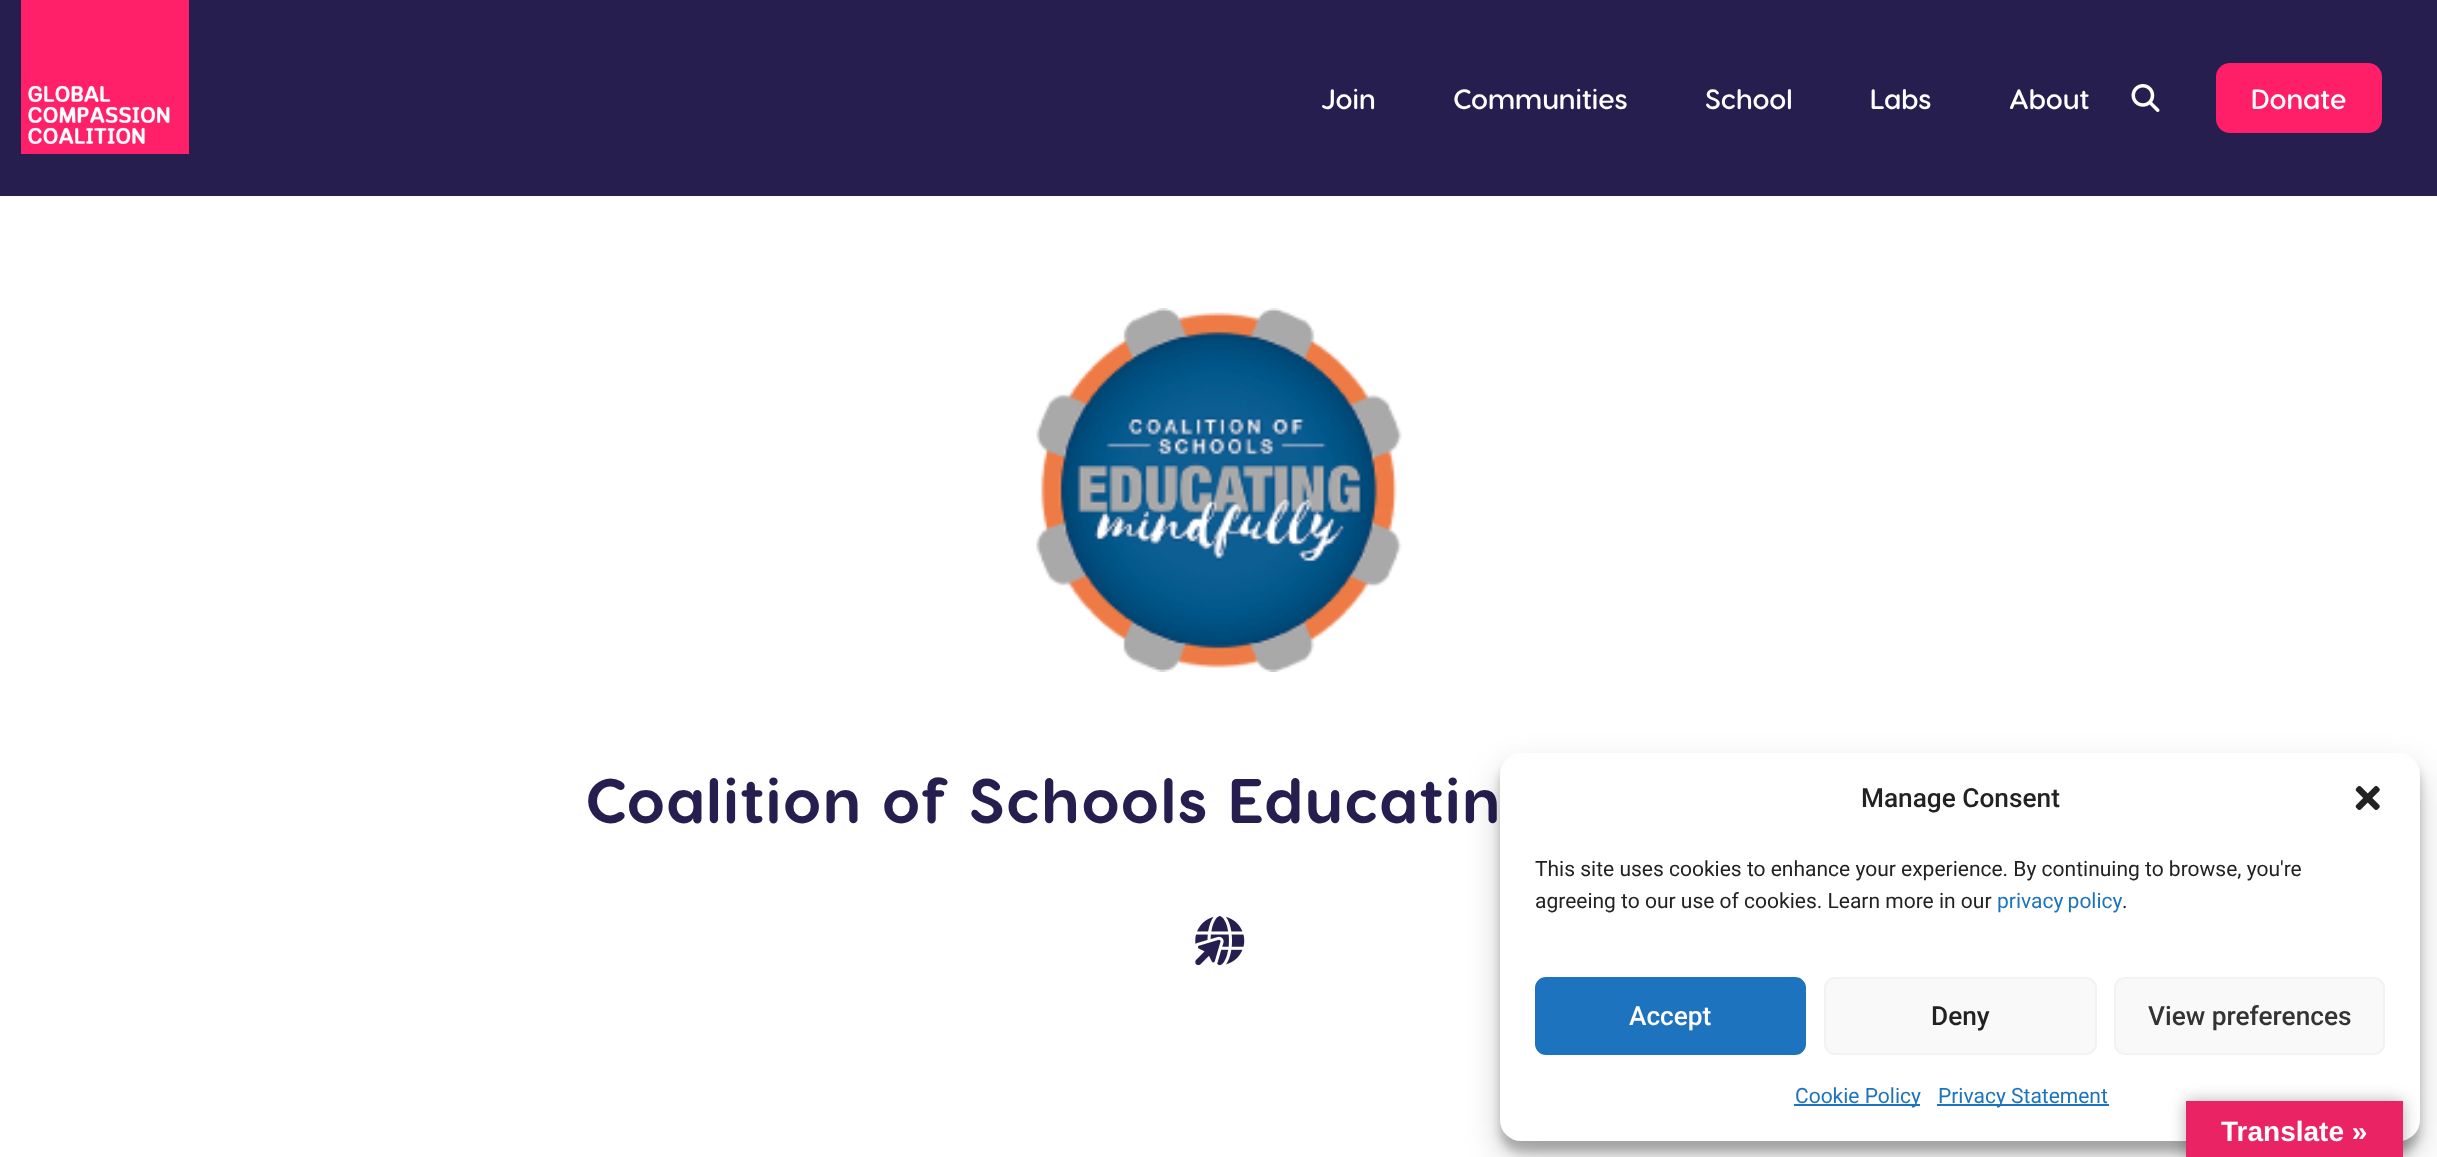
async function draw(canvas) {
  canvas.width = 2437;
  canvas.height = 1157;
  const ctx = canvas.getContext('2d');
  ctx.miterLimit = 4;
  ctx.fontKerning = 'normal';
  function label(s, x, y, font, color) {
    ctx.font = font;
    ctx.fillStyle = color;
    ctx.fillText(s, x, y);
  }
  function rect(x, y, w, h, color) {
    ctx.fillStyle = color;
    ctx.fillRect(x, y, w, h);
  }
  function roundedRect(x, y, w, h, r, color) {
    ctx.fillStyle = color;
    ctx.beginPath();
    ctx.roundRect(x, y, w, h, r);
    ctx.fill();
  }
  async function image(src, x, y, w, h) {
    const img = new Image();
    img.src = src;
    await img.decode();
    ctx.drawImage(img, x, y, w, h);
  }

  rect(0, 0, 2437, 1157, '#fff');
  rect(0, 0, 2437, 196, '#251e4f');
  await image('assets/img1.png', 21, 0, 168, 154);
  label('Join', 1321, 109, '600 28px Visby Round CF', '#fff');
  label('Communities', 1453, 109, '600 28px Visby Round CF', '#fff');
  label('School', 1705, 109, '600 28px Visby Round CF', '#fff');
  label('Labs', 1870, 109, '600 28px Visby Round CF', '#fff');
  label('About', 2009, 109, '600 28px Visby Round CF', '#fff');
  await image('assets/img2.png', 2131, 84, 29, 28);
  roundedRect(2216, 63, 166, 70, 14, '#ff1f69');
  label('Donate', 2251, 109, '600 28px Visby Round CF', '#fff');
  await image('assets/img3.png', 1036, 308, 366, 364);
  ctx.letterSpacing = '1.25px';
  label('Coalition of Schools Educatin', 585, 823, 'bold 63px Visby Round CF', '#251e4f');
  await image('assets/img4.png', 1195, 916, 50, 50);
  ctx.fillStyle = '#0000003b';
  ctx.filter = 'blur(5px)';
  ctx.beginPath();
  ctx.roundRect(1500, 763, 920, 389, 21);
  ctx.fill();
  ctx.filter = 'none';
  ctx.fillStyle = '#00000030';
  ctx.filter = 'blur(17.5px)';
  ctx.beginPath();
  ctx.roundRect(1500, 770, 920, 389, 21);
  ctx.fill();
  ctx.filter = 'none';
  roundedRect(1500, 753, 920, 388, 21, '#fff');
  ctx.letterSpacing = '0px';
  label('Manage Consent', 1861, 807, '500 26.25px Roboto', '#222');
  await image('assets/img5.png', 2355, 786, 25, 24);
  label('This site uses cookies to enhance your experience. By continuing to browse, you\'re', 1535, 876, '21px Roboto', '#222');
  label('agreeing to our use of cookies. Learn more in our', 1535, 908, '21px Roboto', '#222');
  ctx.wordSpacing = '-1px';
  label('privacy policy', 1997, 908, '21px Roboto', '#1e73be');
  ctx.wordSpacing = '0px';
  label('.', 2122, 908, '21px Roboto', '#222');
  ctx.fillStyle = '#1e73be';
  ctx.beginPath();
  ctx.roundRect(1536, 978, 269, 76, 10);
  ctx.fill();
  ctx.strokeStyle = '#1e73be';
  ctx.lineWidth = 2;
  ctx.stroke();
  label('Accept', 1629, 1025, '500 26.25px Roboto', '#fff');
  ctx.fillStyle = '#f9f9f9';
  ctx.beginPath();
  ctx.roundRect(1825, 978, 271, 76, 10);
  ctx.fill();
  ctx.strokeStyle = '#f2f2f2';
  ctx.stroke();
  label('Deny', 1931, 1025, '500 26.25px Roboto', '#222');
  ctx.fillStyle = '#f9f9f9';
  ctx.beginPath();
  ctx.roundRect(2115, 978, 269, 76, 10);
  ctx.fill();
  ctx.stroke();
  label('View preferences', 2148, 1025, '500 26.25px Roboto', '#333');
  rect(1794, 1104, 126, 2, '#1e73be');
  label('Cookie Policy', 1795, 1103, '21px Roboto', '#1e73be');
  rect(1937, 1104, 172, 2, '#1e73be');
  label('Privacy Statement', 1938, 1103, '21px Roboto', '#1e73be');
  ctx.fillStyle = '#0000004d';
  ctx.filter = 'blur(8px)';
  ctx.beginPath();
  ctx.rect(2186, 1101, 217, 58);
  ctx.fill();
  ctx.filter = 'none';
  rect(2186, 1101, 217, 56, '#ea2365');
  label('Translate »', 2221, 1141, 'bold 28px Liberation Sans', '#fff');
}

draw(document.querySelector('canvas'));
